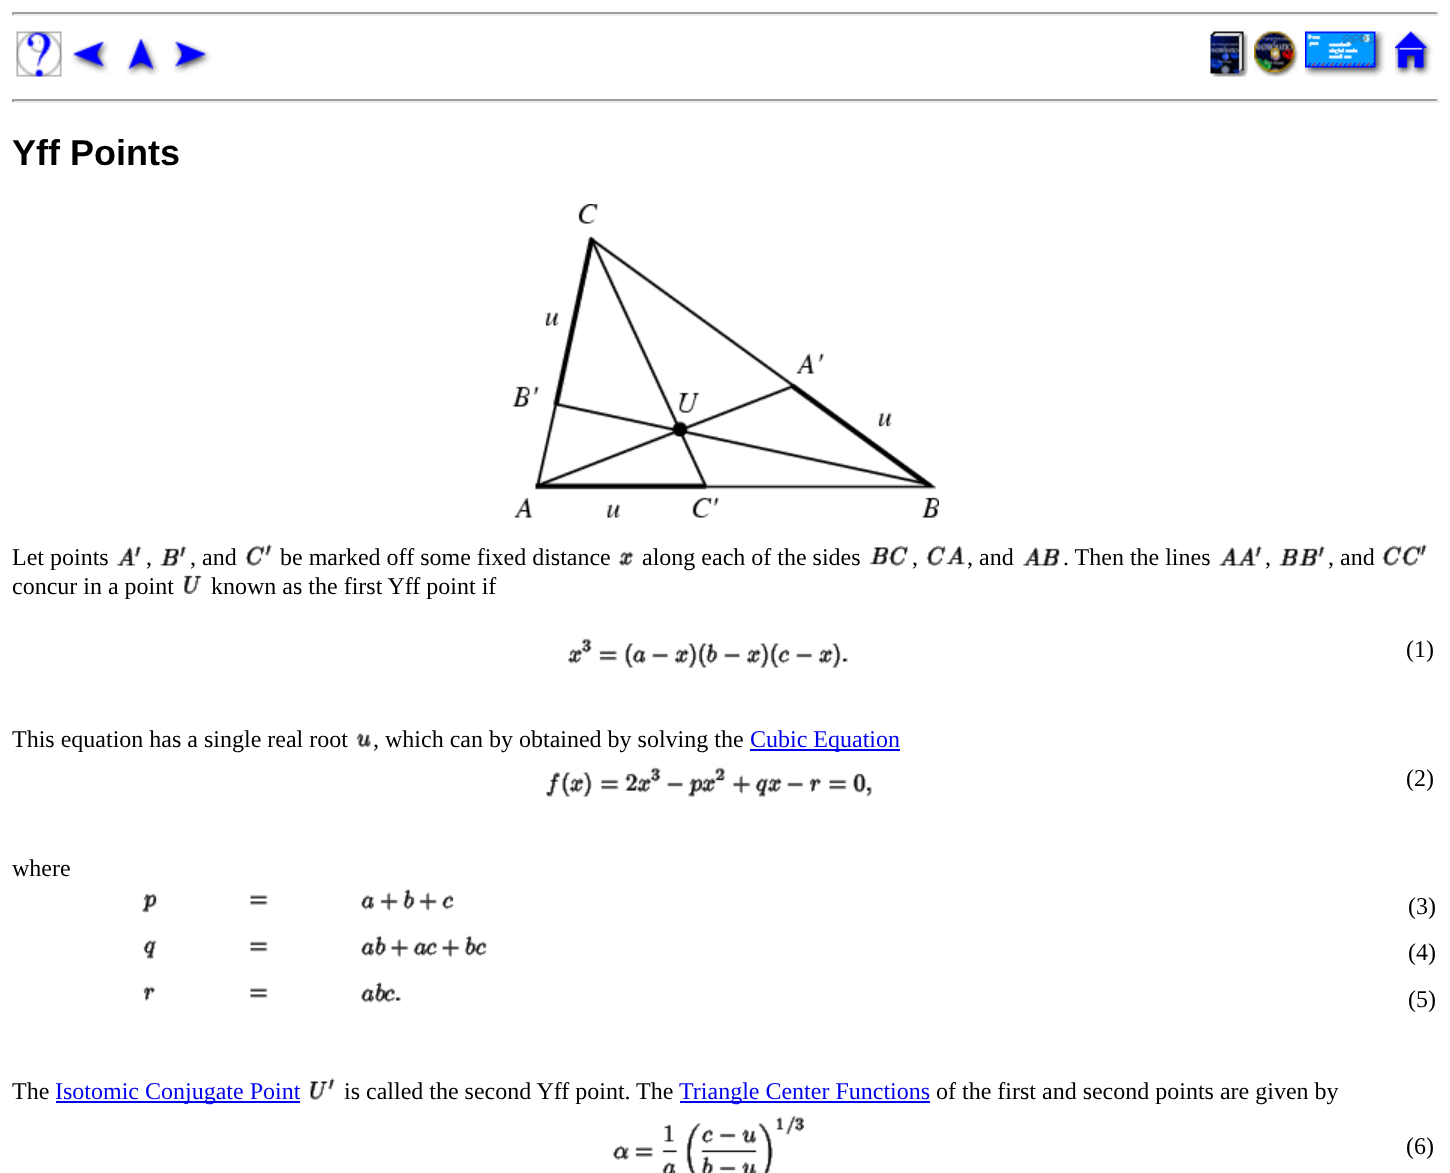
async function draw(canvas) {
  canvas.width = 1450;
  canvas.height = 1173;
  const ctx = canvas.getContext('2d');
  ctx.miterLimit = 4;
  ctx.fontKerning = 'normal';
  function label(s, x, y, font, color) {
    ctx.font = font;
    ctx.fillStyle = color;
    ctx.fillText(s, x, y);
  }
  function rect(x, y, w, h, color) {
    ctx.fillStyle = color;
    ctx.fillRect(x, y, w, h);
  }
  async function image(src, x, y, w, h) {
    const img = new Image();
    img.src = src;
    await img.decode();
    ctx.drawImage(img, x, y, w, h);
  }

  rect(0, 0, 1450, 1173, '#fff');
  rect(12, 12, 1427, 2, '#9f9f9f');
  rect(1437, 12, 2, 3, '#eee');
  rect(12, 14, 1427, 2, '#eee');
  rect(12, 12, 2, 3, '#9f9f9f');
  await image('assets/img1.png', 16, 31, 46, 46);
  await image('assets/img2.png', 71, 40, 38, 34);
  await image('assets/img3.png', 126, 38, 33, 38);
  await image('assets/img4.png', 173, 40, 38, 34);
  await image('assets/img5.png', 1210, 31, 38, 46);
  await image('assets/img6.png', 1254, 31, 45, 46);
  await image('assets/img7.png', 1305, 31, 80, 46);
  await image('assets/img8.png', 1395, 31, 38, 46);
  rect(12, 99, 1427, 2, '#9f9f9f');
  rect(1437, 99, 2, 3, '#eee');
  rect(12, 101, 1427, 2, '#eee');
  rect(12, 99, 2, 3, '#9f9f9f');
  label('Yff Points', 12, 165, 'bold 36px Liberation Sans', '#000');
  await image('assets/img9.png', 511, 204, 428, 314);
  label('Let points', 12, 565, '24px Liberation Serif', '#000');
  await image('assets/img10.png', 116, 545, 26, 21);
  label(',', 146, 565, '24px Liberation Serif', '#000');
  await image('assets/img11.png', 160, 545, 27, 21);
  label(', and', 190, 565, '24px Liberation Serif', '#000');
  await image('assets/img12.png', 245, 544, 27, 22);
  label('be marked off some fixed distance', 280, 565, '24px Liberation Serif', '#000');
  await image('assets/img13.png', 619, 551, 15, 15);
  label('along each of the sides', 642, 565, '24px Liberation Serif', '#000');
  await image('assets/img14.png', 869, 545, 39, 21);
  label(',', 912, 565, '24px Liberation Serif', '#000');
  await image('assets/img15.png', 926, 545, 39, 21);
  label(', and', 967, 565, '24px Liberation Serif', '#000');
  await image('assets/img16.png', 1022, 547, 38, 19);
  label('. Then the lines', 1063, 565, '24px Liberation Serif', '#000');
  await image('assets/img17.png', 1219, 545, 43, 21);
  label(',', 1265, 565, '24px Liberation Serif', '#000');
  await image('assets/img18.png', 1279, 545, 46, 21);
  label(', and', 1328, 565, '24px Liberation Serif', '#000');
  await image('assets/img19.png', 1382, 544, 45, 22);
  label('concur in a point', 12, 594, '24px Liberation Serif', '#000');
  await image('assets/img20.png', 184, 575, 18, 19);
  label('known as the first Yff point if', 211, 594, '24px Liberation Serif', '#000');
  await image('assets/img21.png', 568, 638, 280, 30);
  label('(1)', 1406, 657, '24px Liberation Serif', '#000');
  label('This equation has a single real root', 12, 747, '24px Liberation Serif', '#000');
  await image('assets/img22.png', 356, 733, 15, 14);
  label(', which can by obtained by solving the', 373, 747, '24px Liberation Serif', '#000');
  rect(750, 749, 150, 2, '#00e');
  label('Cubic Equation', 750, 747, '24px Liberation Serif', '#00e');
  await image('assets/img23.png', 546, 767, 326, 30);
  label('(2)', 1406, 786, '24px Liberation Serif', '#000');
  label('where', 12, 876, '24px Liberation Serif', '#000');
  await image('assets/img24.png', 142, 893, 15, 20);
  await image('assets/img25.png', 250, 895, 18, 10);
  await image('assets/img26.png', 361, 889, 93, 22);
  label('(3)', 1408, 914, '24px Liberation Serif', '#000');
  await image('assets/img27.png', 143, 940, 14, 19);
  await image('assets/img28.png', 250, 941, 18, 11);
  await image('assets/img29.png', 361, 935, 126, 23);
  label('(4)', 1408, 960, '24px Liberation Serif', '#000');
  await image('assets/img30.png', 143, 986, 12, 15);
  await image('assets/img25.png', 250, 988, 18, 10);
  await image('assets/img31.png', 361, 982, 40, 21);
  label('(5)', 1408, 1007, '24px Liberation Serif', '#000');
  label('The', 12, 1099, '24px Liberation Serif', '#000');
  rect(56, 1101, 244, 2, '#00e');
  label('Isotomic Conjugate Point', 55, 1099, '24px Liberation Serif', '#00e');
  await image('assets/img32.png', 310, 1078, 25, 22);
  label('is called the second Yff point.', 344, 1099, '24px Liberation Serif', '#000');
  label('The', 636, 1099, '24px Liberation Serif', '#000');
  rect(680, 1101, 250, 2, '#00e');
  label('Triangle Center Functions', 679, 1099, '24px Liberation Serif', '#00e');
  label('of the first and second points are given by', 936, 1099, '24px Liberation Serif', '#000');
  await image('assets/img33.png', 613, 1115, 191, 58);
  label('(6)', 1406, 1154, '24px Liberation Serif', '#000');
}

draw(document.querySelector('canvas'));
